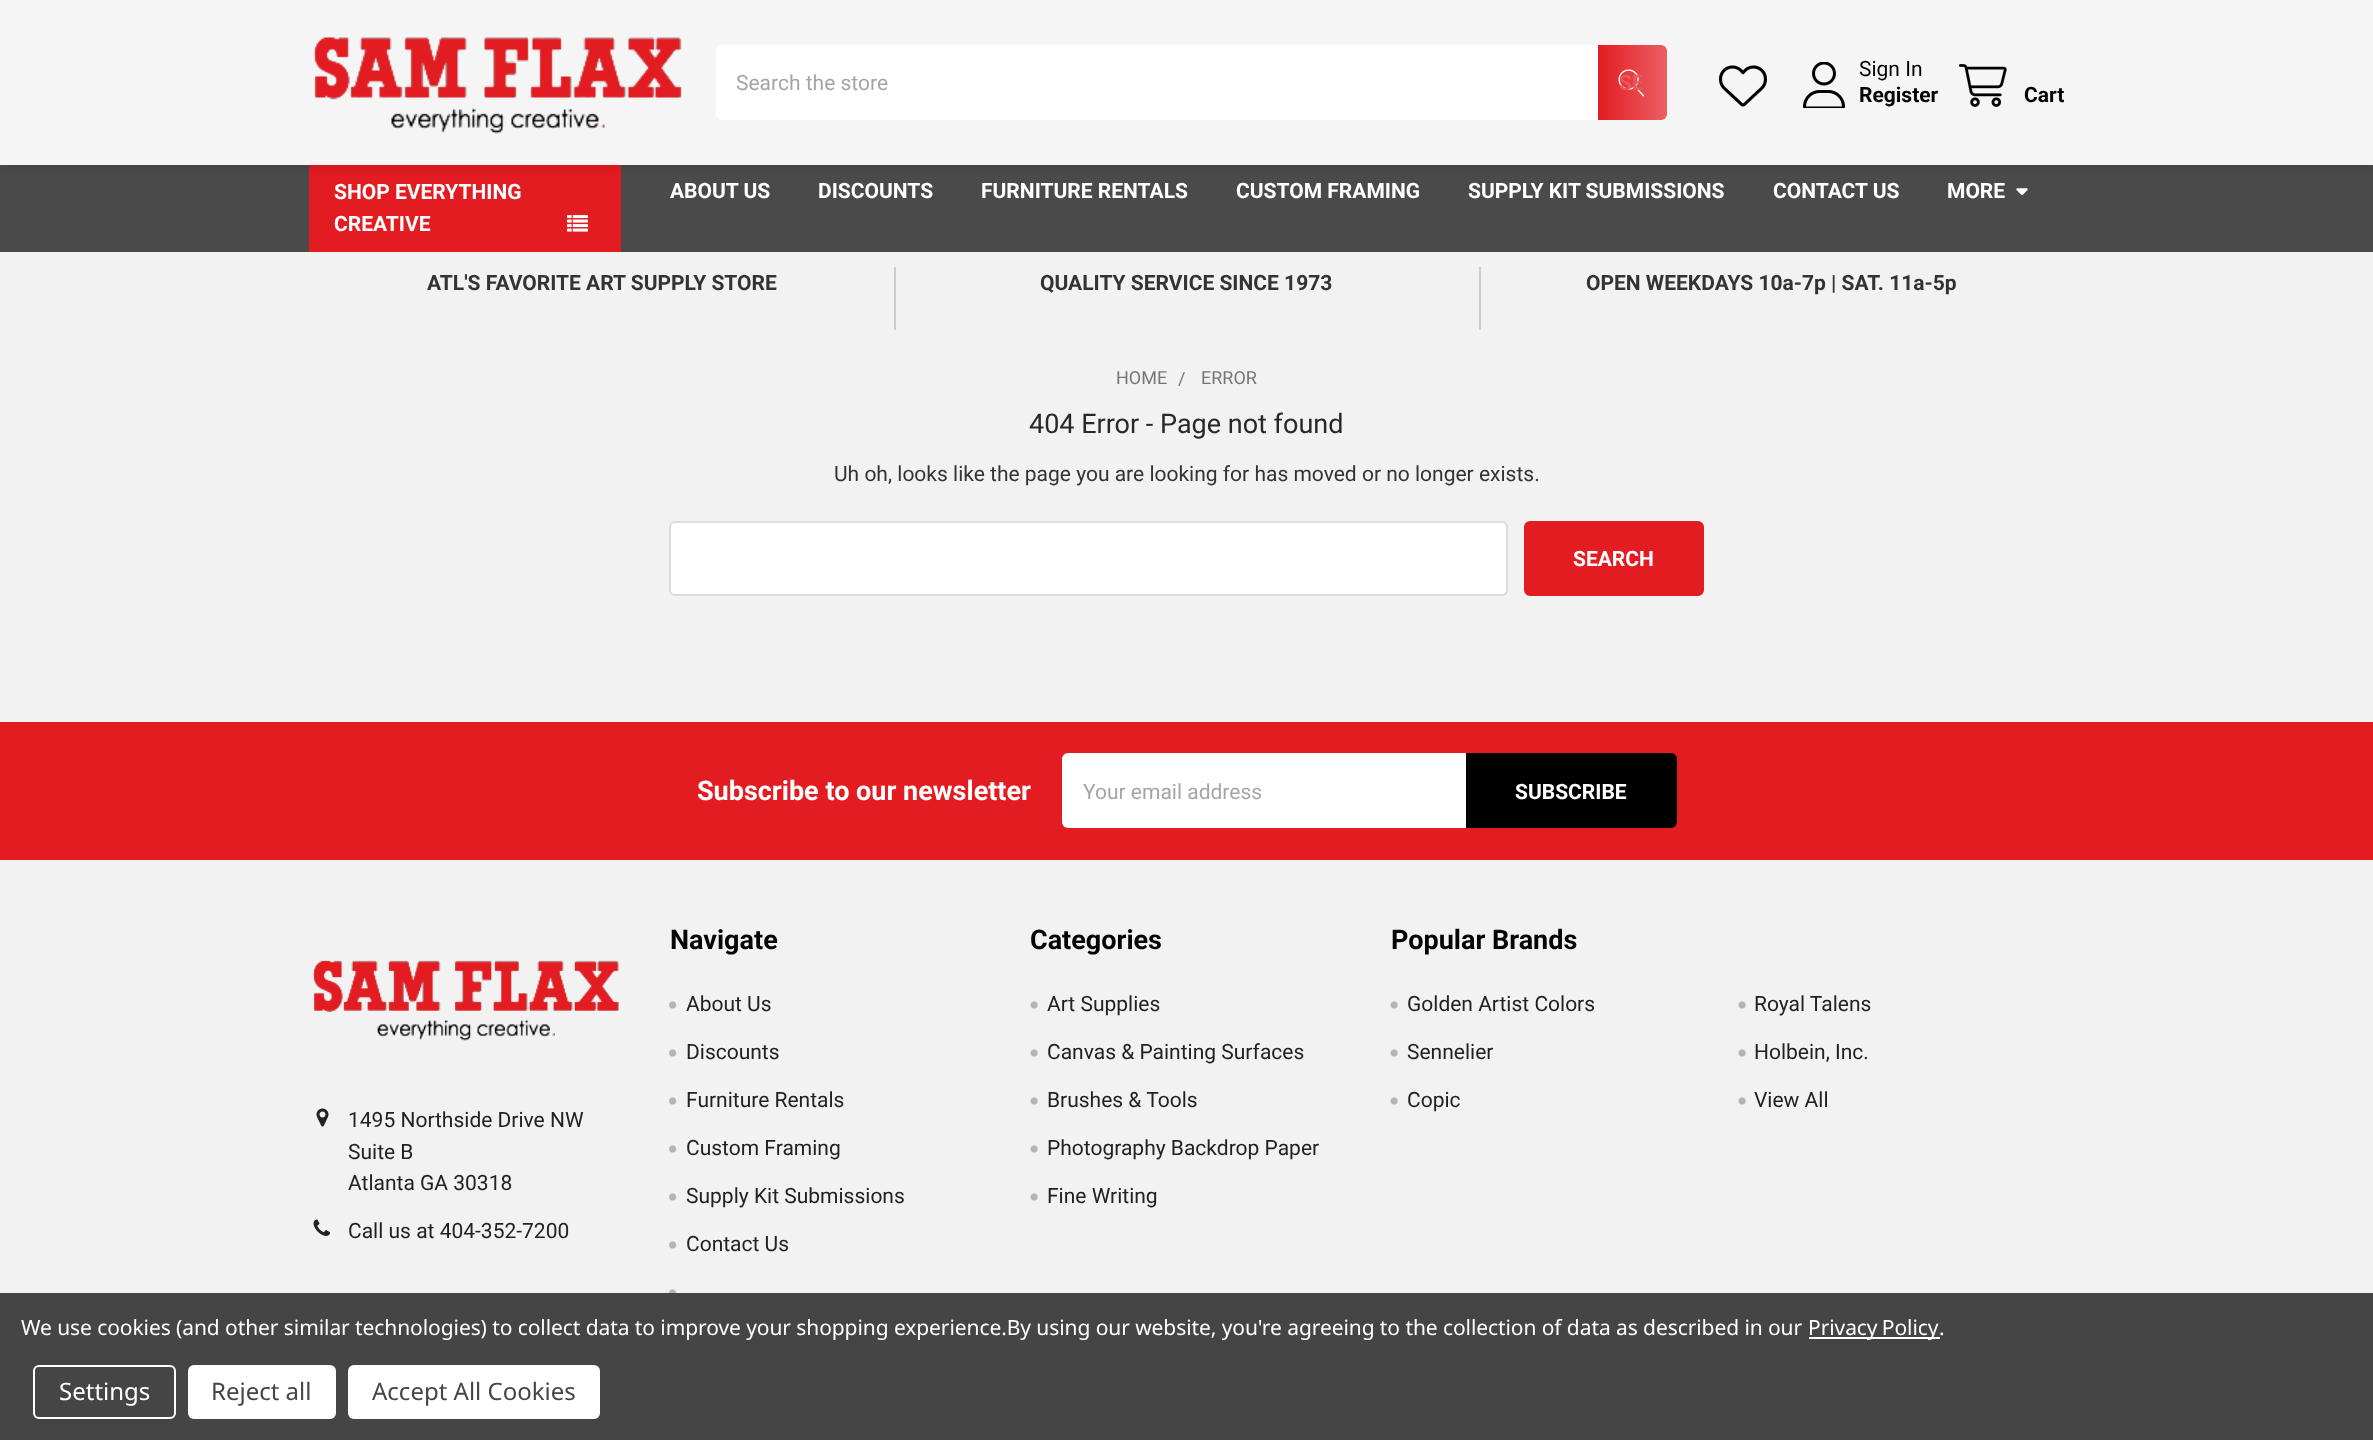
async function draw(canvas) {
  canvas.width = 2373;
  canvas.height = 1440;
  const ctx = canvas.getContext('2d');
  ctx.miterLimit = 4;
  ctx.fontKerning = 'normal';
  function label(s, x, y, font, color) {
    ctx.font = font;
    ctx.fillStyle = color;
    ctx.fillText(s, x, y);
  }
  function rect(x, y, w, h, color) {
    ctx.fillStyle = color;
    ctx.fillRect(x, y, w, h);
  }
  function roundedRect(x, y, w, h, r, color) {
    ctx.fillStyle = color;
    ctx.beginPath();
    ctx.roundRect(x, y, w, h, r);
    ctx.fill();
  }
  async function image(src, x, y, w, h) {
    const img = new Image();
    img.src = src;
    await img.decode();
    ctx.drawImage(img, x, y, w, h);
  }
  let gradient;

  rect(0, 0, 2373, 1440, '#f2f2f2');
  rect(0, 0, 2373, 165, '#f5f5f5');
  rect(0, 165, 2373, 87, '#4a4a4a');
  roundedRect(309, 165, 312, 87, 3, '#e31c22');
  ctx.beginPath();
  ctx.roundRect(310, 166, 310, 85, [2, 2, 0, 0]);
  ctx.strokeStyle = '#e31c22';
  ctx.lineWidth = 2;
  ctx.stroke();
  await image('assets/img7.png', 2016, 188, 12, 7);
  ctx.save();
  ctx.beginPath();
  ctx.rect(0, 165, 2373, 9);
  ctx.clip();
  ctx.fillStyle = '#0000001a';
  ctx.filter = 'blur(7.5px)';
  ctx.beginPath();
  ctx.rect(0, 3, 2373, 165);
  ctx.fill();
  ctx.filter = 'none';
  ctx.restore();
  await image('assets/img1.png', 313, 36, 369, 98);
  roundedRect(716, 45, 951, 75, 6, '#fff');
  gradient = ctx.createLinearGradient(1598, 83, 1667, 83);
  gradient.addColorStop(0, '#e31c22');
  gradient.addColorStop(1, '#eb6064');
  ctx.fillStyle = gradient;
  ctx.beginPath();
  ctx.roundRect(1598, 45, 69, 75, [0, 6, 6, 0]);
  ctx.fill();
  await image('assets/img2.png', 1618, 69, 27, 28);
  label('Search the store', 736, 90, '21px Roboto', '#a5a5a5');
  label('SE', 1619, 90, 'bold 21px Roboto', '#ea575b');
  await image('assets/img3.png', 1719, 65, 48, 42);
  await image('assets/img4.png', 1803, 62, 42, 46);
  label('Sign In', 1859, 76, '21px Roboto', '#050505');
  label('Register', 1859, 102, 'bold 21px Roboto', '#050505');
  await image('assets/img5.png', 1959, 64, 48, 43);
  label('Cart', 2024, 102, 'bold 21px Roboto', '#050505');
  label('SHOP EVERYTHING', 334, 199, 'bold 21px Roboto', '#fff');
  label('CREATIVE', 334, 231, 'bold 21px Roboto', '#fff');
  await image('assets/img6.png', 567, 215, 21, 17);
  label('ABOUT US', 670, 198, 'bold 21px Roboto', '#fff');
  label('DISCOUNTS', 818, 198, 'bold 21px Roboto', '#fff');
  label('FURNITURE RENTALS', 981, 198, 'bold 21px Roboto', '#fff');
  label('CUSTOM FRAMING', 1236, 198, 'bold 21px Roboto', '#fff');
  label('SUPPLY KIT SUBMISSIONS', 1468, 198, 'bold 21px Roboto', '#fff');
  label('CONTACT US', 1773, 198, 'bold 21px Roboto', '#fff');
  label('MORE', 1947, 198, 'bold 21px Roboto', '#fff');
  label('ATL\'S FAVORITE ART SUPPLY STORE', 427, 290, 'bold 21px Roboto', '#333');
  rect(894, 267, 2, 63, '#ccc');
  label('QUALITY SERVICE SINCE 1973', 1040, 290, 'bold 21px Roboto', '#333');
  rect(1479, 267, 2, 63, '#ccc');
  label('OPEN WEEKDAYS 10a-7p | SAT. 11a-5p', 1586, 290, 'bold 21px Roboto', '#333');
  label('HOME', 1116, 384, '18px Roboto', '#767676');
  label('/', 1178, 385, '18px Roboto', '#767676');
  label('ERROR', 1201, 384, '18px Roboto', '#767676');
  label('404 Error - Page not found', 1029, 433, '27px Roboto', '#282828');
  label('Uh oh, looks like the page you are looking for has moved or no longer exists.', 834, 481, '21px Roboto', '#333');
  ctx.fillStyle = '#fff';
  ctx.beginPath();
  ctx.roundRect(670, 522, 837, 73, 5);
  ctx.fill();
  ctx.strokeStyle = '#dcdcdc';
  ctx.stroke();
  ctx.fillStyle = '#e31c22';
  ctx.beginPath();
  ctx.roundRect(1525, 522, 178, 73, 5);
  ctx.fill();
  ctx.strokeStyle = '#e31c22';
  ctx.stroke();
  label('SEARCH', 1573, 566, 'bold 21px Roboto', '#fff');
  rect(0, 722, 2373, 138, '#e31c22');
  label('Subscribe to our newsletter', 697, 800, 'bold 27px Roboto', '#fff');
  ctx.beginPath();
  ctx.roundRect(1062, 753, 404, 75, [6, 0, 0, 6]);
  ctx.fill();
  label('Your email address', 1083, 799, '21px Roboto', '#a5a5a5');
  ctx.fillStyle = '#000';
  ctx.beginPath();
  ctx.roundRect(1467, 754, 209, 73, [0, 5, 5, 0]);
  ctx.fill();
  ctx.strokeStyle = '#000';
  ctx.stroke();
  label('SUBSCRIBE', 1515, 799, 'bold 21px Roboto', '#fff');
  await image('assets/img8.png', 313, 960, 306, 81);
  await image('assets/img9.png', 316, 1108, 13, 19);
  label('1495 Northside Drive NW', 348, 1127, '21px Roboto', '#222');
  label('Suite B', 348, 1159, '21px Roboto', '#222');
  label('Atlanta GA 30318', 348, 1190, '21px Roboto', '#222');
  await image('assets/img10.png', 313, 1219, 17, 17);
  label('Call us at 404-352-7200', 348, 1238, '21px Roboto', '#222');
  label('Navigate', 670, 949, 'bold 27px Roboto', '#050505');
  await image('assets/img11.png', 669, 1001, 8, 8);
  label('About Us', 686, 1011, '21px Roboto', '#222');
  await image('assets/img11.png', 669, 1049, 8, 8);
  label('Discounts', 686, 1059, '21px Roboto', '#222');
  await image('assets/img11.png', 669, 1097, 8, 8);
  label('Furniture Rentals', 686, 1107, '21px Roboto', '#222');
  await image('assets/img11.png', 669, 1145, 8, 8);
  label('Custom Framing', 686, 1155, '21px Roboto', '#222');
  await image('assets/img11.png', 669, 1193, 8, 8);
  label('Supply Kit Submissions', 686, 1203, '21px Roboto', '#222');
  await image('assets/img11.png', 669, 1241, 8, 8);
  label('Contact Us', 686, 1251, '21px Roboto', '#222');
  await image('assets/img12.png', 669, 1289, 8, 4);
  label('Categories', 1030, 949, 'bold 27px Roboto', '#050505');
  await image('assets/img13.png', 1030, 1001, 8, 8);
  label('Art Supplies', 1047, 1011, '21px Roboto', '#222');
  await image('assets/img13.png', 1030, 1049, 8, 8);
  label('Canvas & Painting Surfaces', 1047, 1059, '21px Roboto', '#222');
  await image('assets/img13.png', 1030, 1097, 8, 8);
  label('Brushes & Tools', 1047, 1107, '21px Roboto', '#222');
  await image('assets/img13.png', 1030, 1145, 8, 8);
  label('Photography Backdrop Paper', 1047, 1155, '21px Roboto', '#222');
  await image('assets/img13.png', 1030, 1193, 8, 8);
  label('Fine Writing', 1047, 1203, '21px Roboto', '#222');
  label('Popular Brands', 1391, 949, 'bold 27px Roboto', '#050505');
  await image('assets/img13.png', 1390, 1001, 8, 8);
  label('Golden Artist Colors', 1407, 1011, '21px Roboto', '#222');
  await image('assets/img13.png', 1738, 1001, 8, 8);
  label('Royal Talens', 1754, 1011, '21px Roboto', '#222');
  await image('assets/img13.png', 1390, 1049, 8, 8);
  label('Sennelier', 1407, 1059, '21px Roboto', '#222');
  await image('assets/img13.png', 1738, 1049, 8, 8);
  label('Holbein, Inc.', 1754, 1059, '21px Roboto', '#222');
  await image('assets/img13.png', 1390, 1097, 8, 8);
  label('Copic', 1407, 1107, '21px Roboto', '#222');
  await image('assets/img13.png', 1738, 1097, 8, 8);
  label('View All', 1754, 1107, '21px Roboto', '#222');
  rect(0, 1293, 2373, 147, '#454545');
  ctx.letterSpacing = '-0.08px';
  label('We use cookies (and other similar technologies) to collect data to improve your shopping experience.By using our website, you\'re agreeing to the collection of data as described in our', 21, 1335, '21px Noto Sans', '#fff');
  rect(1809, 1337, 131, 2, '#fff');
  ctx.wordSpacing = '-1px';
  label('Privacy Policy', 1808, 1335, '21px Noto Sans', '#fff');
  ctx.wordSpacing = '0px';
  label('.', 1939, 1335, '21px Noto Sans', '#fff');
  ctx.beginPath();
  ctx.roundRect(34, 1366, 141, 52, 5);
  ctx.strokeStyle = '#fff';
  ctx.stroke();
  ctx.letterSpacing = '0px';
  label('Settings', 59, 1400, '24px Noto Sans', '#fff');
  roundedRect(188, 1365, 148, 54, 6, '#fff');
  label('Reject all', 211, 1400, '24px Noto Sans', '#454545');
  roundedRect(348, 1365, 252, 54, 6, '#fff');
  label('Accept All Cookies', 372, 1400, '24px Noto Sans', '#454545');
}

draw(document.querySelector('canvas'));
